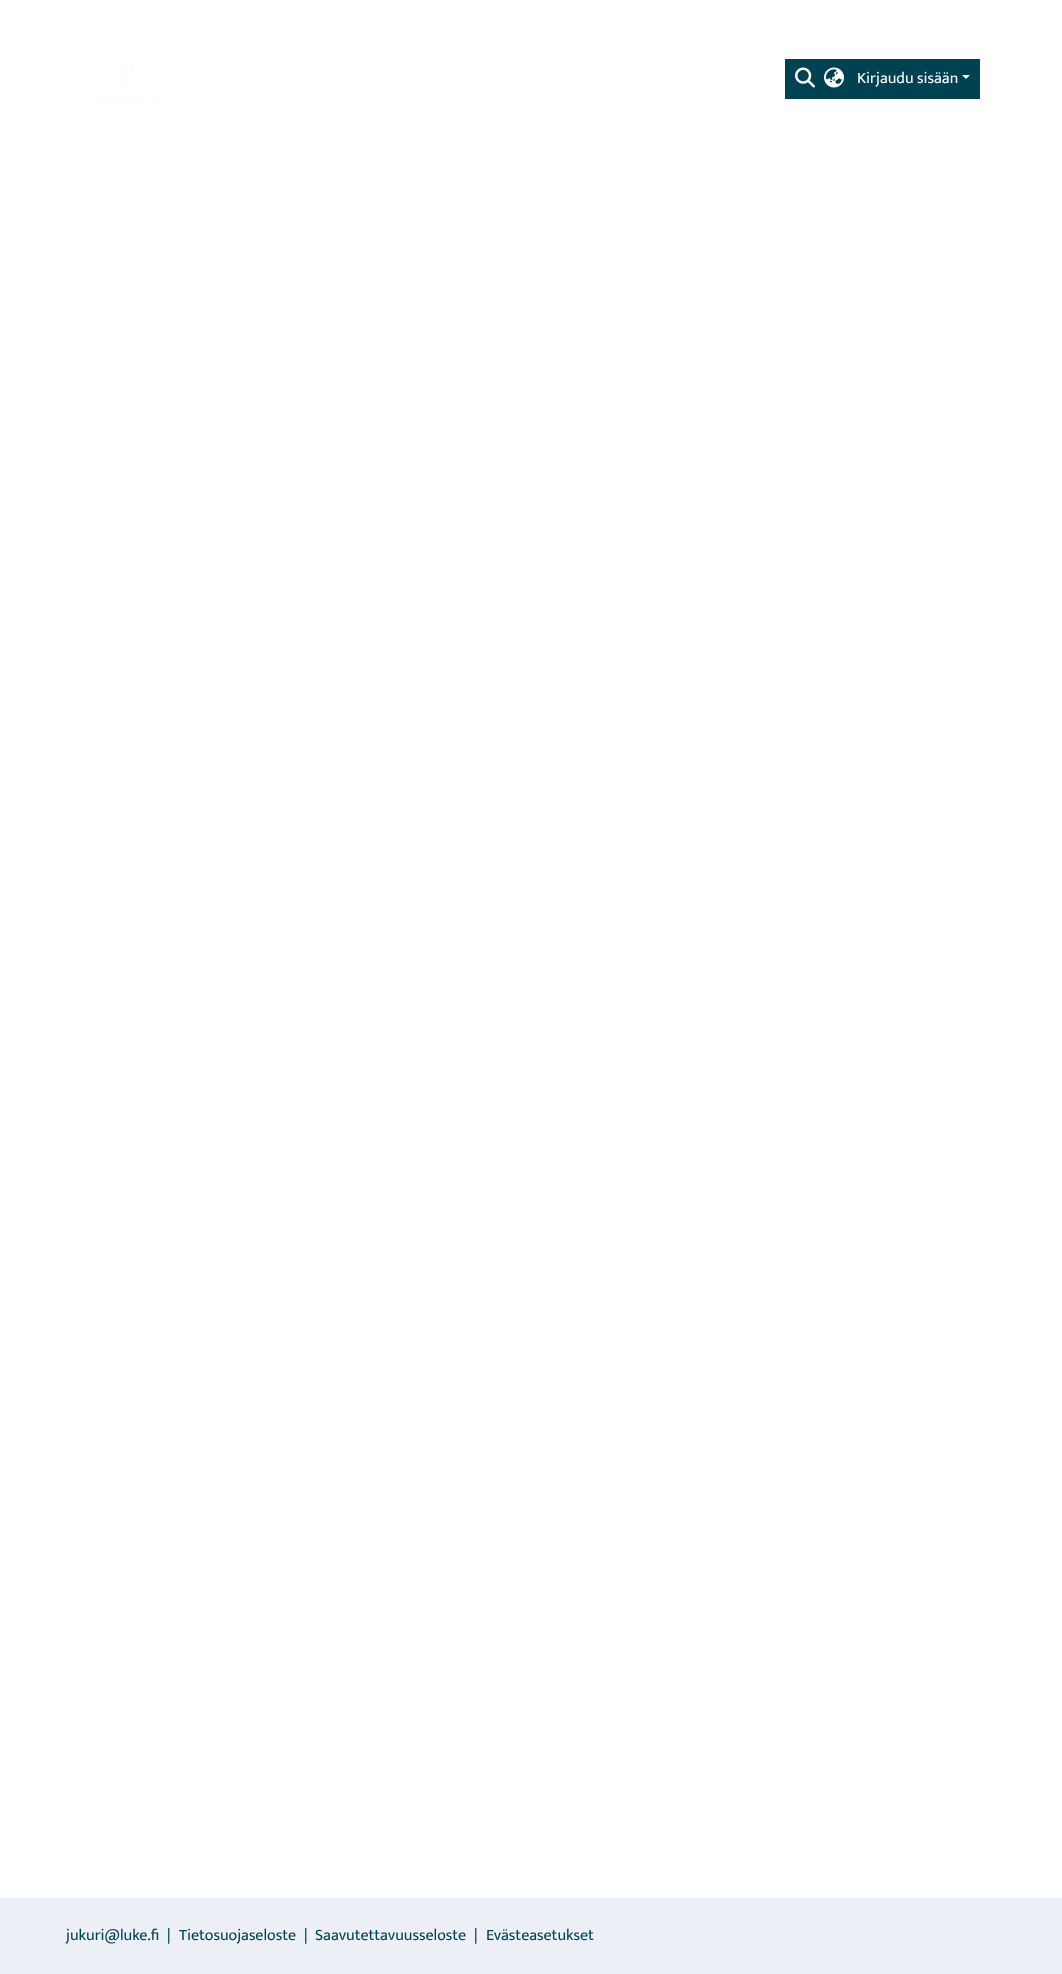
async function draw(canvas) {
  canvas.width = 1062;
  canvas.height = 1974;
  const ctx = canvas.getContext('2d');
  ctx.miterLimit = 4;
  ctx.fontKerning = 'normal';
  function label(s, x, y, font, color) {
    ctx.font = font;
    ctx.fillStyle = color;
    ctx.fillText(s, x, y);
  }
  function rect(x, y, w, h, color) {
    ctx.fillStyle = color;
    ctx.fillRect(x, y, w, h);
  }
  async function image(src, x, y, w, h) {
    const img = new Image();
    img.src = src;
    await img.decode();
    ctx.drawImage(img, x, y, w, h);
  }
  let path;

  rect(0, 0, 1062, 1974, '#fff');
  await image('assets/img1.png', 92, 36, 71, 67);
  rect(785, 59, 195, 40, '#004152');
  await image('assets/img2.png', 795, 67, 20, 21);
  await image('assets/img3.png', 824, 67, 20, 21);
  label('Kirjaudu sisään', 857, 83, '16px Mukta', '#fff');
  path = new Path2D('M962 75H970L966 79Z');
  ctx.fill(path);
  rect(0, 1898, 1062, 76, '#eceff5');
  label('jukuri@luke.fi', 66, 1940, '16px Mukta', '#004152');
  label('|', 167, 1940, '16px Mukta', '#004152');
  label('Tietosuojaseloste', 179, 1940, '16px Mukta', '#004152');
  label('|', 304, 1940, '16px Mukta', '#004152');
  label('Saavutettavuusseloste', 315, 1940, '16px Mukta', '#004152');
  label('|', 474, 1940, '16px Mukta', '#004152');
  label('Evästeasetukset', 486, 1940, '16px Mukta', '#004152');
}

draw(document.querySelector('canvas'));
